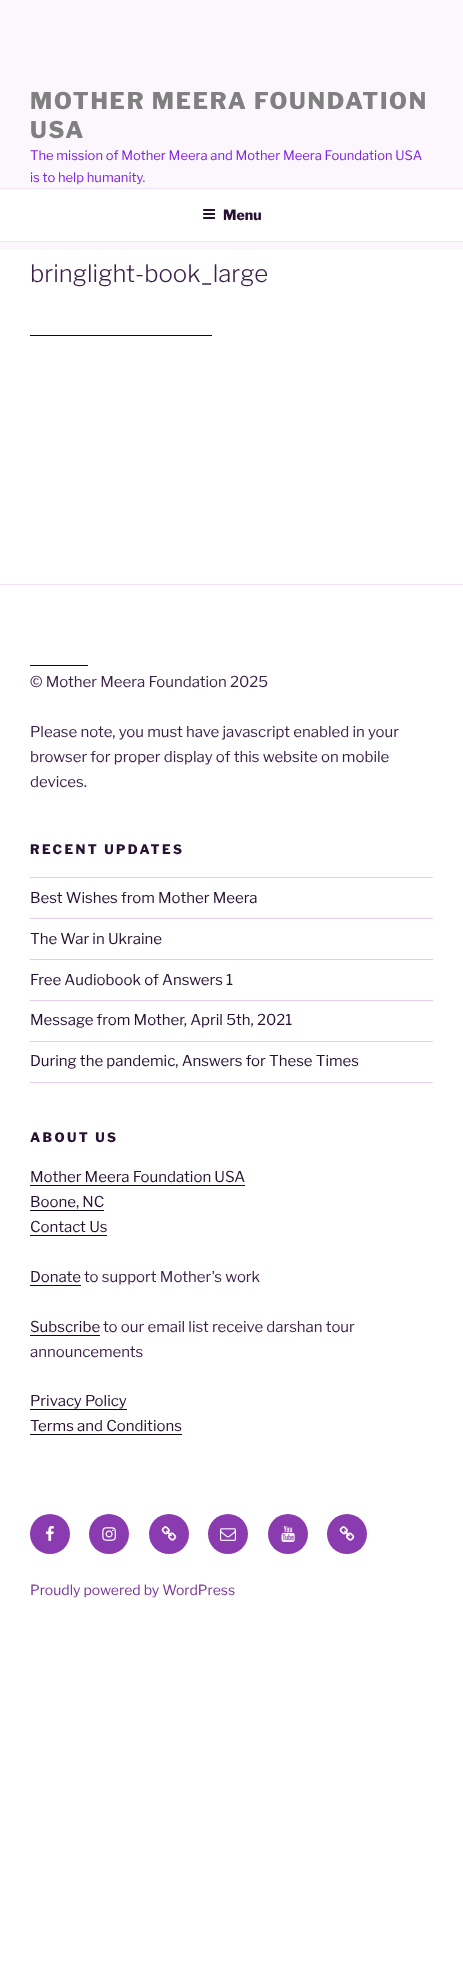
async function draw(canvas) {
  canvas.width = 463;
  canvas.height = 1964;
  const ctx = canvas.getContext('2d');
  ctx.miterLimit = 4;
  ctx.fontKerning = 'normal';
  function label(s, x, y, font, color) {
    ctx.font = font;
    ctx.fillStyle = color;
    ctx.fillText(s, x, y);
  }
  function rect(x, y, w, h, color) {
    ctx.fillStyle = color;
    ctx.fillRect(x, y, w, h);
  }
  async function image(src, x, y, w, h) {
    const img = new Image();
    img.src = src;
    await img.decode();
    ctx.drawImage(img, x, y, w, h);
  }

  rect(0, 0, 463, 1964, '#fff');
  rect(0, 0, 463, 250, '#fbf7fc');
  ctx.letterSpacing = '1.8px';
  label('MOTHER MEERA FOUNDATION', 30, 109, '800 23px Libre Franklin', '#808080');
  label('USA', 30, 138, '800 23px Libre Franklin', '#808080');
  ctx.letterSpacing = '0px';
  label('The mission of Mother Meera and Mother Meera Foundation USA', 30, 160, '13px Libre Franklin', '#8224e3');
  label('is to help humanity.', 30, 182, '13px Libre Franklin', '#8224e3');
  rect(0, 189, 463, 52, '#fff');
  rect(0, 188, 463, 1, '#f0e4f6');
  rect(0, 241, 463, 1, '#f0e4f6');
  await image('assets/img1.png', 203, 209, 13, 10);
  label('Menu', 223, 220, '800 14px Libre Franklin', '#271132');
  label('bringlight-book_large', 30, 282, '300 24px Libre Franklin', '#3a1f47');
  rect(30, 335, 182, 1, '#120817');
  rect(0, 584, 463, 1, '#f0e4f6');
  rect(30, 665, 58, 1, '#120817');
  label('© Mother Meera Foundation 2025', 30, 687, '15px Libre Franklin', '#3a1f47');
  label('Please note, you must have javascript enabled in your', 30, 737, '15px Libre Franklin', '#3a1f47');
  label('browser for proper display of this website on mobile', 30, 762, '15px Libre Franklin', '#3a1f47');
  label('devices.', 30, 787, '15px Libre Franklin', '#3a1f47');
  ctx.letterSpacing = '2.4px';
  label('RECENT UPDATES', 30, 854, '800 13px Libre Franklin', '#271132');
  rect(30, 877, 403, 1, '#e4cdee');
  rect(30, 918, 403, 1, '#e4cdee');
  ctx.letterSpacing = '0px';
  label('Best Wishes from Mother Meera', 30, 903, '15px Libre Franklin', '#271132');
  rect(30, 959, 403, 1, '#e4cdee');
  label('The War in Ukraine', 30, 944, '15px Libre Franklin', '#271132');
  rect(30, 1000, 403, 1, '#e4cdee');
  label('Free Audiobook of Answers 1', 30, 985, '15px Libre Franklin', '#271132');
  rect(30, 1041, 403, 1, '#e4cdee');
  label('Message from Mother, April 5th, 2021', 30, 1025, '15px Libre Franklin', '#271132');
  rect(30, 1082, 403, 1, '#e4cdee');
  label('During the pandemic, Answers for These Times', 30, 1066, '15px Libre Franklin', '#271132');
  ctx.letterSpacing = '2.4px';
  label('ABOUT US', 30, 1142, '800 13px Libre Franklin', '#271132');
  ctx.letterSpacing = '0px';
  label('Mother Meera Foundation USA', 30, 1182, '15px Libre Franklin', '#271132');
  rect(30, 1185, 215, 1, '#120817');
  label('Boone, NC', 30, 1207, '15px Libre Franklin', '#271132');
  rect(30, 1210, 74, 1, '#120817');
  label('Contact Us', 30, 1232, '15px Libre Franklin', '#271132');
  rect(30, 1235, 77, 1, '#120817');
  label('Donate', 30, 1282, '15px Libre Franklin', '#271132');
  rect(30, 1285, 51, 1, '#120817');
  label('to support Mother\'s work', 84, 1282, '15px Libre Franklin', '#3a1f47');
  label('Subscribe', 30, 1332, '15px Libre Franklin', '#271132');
  rect(30, 1335, 70, 1, '#120817');
  label('to our email list receive darshan tour', 103, 1332, '15px Libre Franklin', '#3a1f47');
  label('announcements', 30, 1357, '15px Libre Franklin', '#3a1f47');
  label('Privacy Policy', 30, 1406, '15px Libre Franklin', '#271132');
  rect(30, 1409, 97, 1, '#120817');
  label('Terms and Conditions', 30, 1431, '15px Libre Franklin', '#271132');
  rect(30, 1434, 152, 1, '#120817');
  ctx.fillStyle = '#8b3bb0';
  ctx.beginPath();
  ctx.arc(50, 1534, 20, 0, 2 * Math.PI);
  ctx.fill();
  await image('assets/img2.png', 46, 1526, 8, 15);
  ctx.beginPath();
  ctx.arc(109, 1534, 20, 0, 2 * Math.PI);
  ctx.fill();
  await image('assets/img3.png', 102, 1527, 14, 14);
  ctx.beginPath();
  ctx.arc(169, 1534, 20, 0, 2 * Math.PI);
  ctx.fill();
  await image('assets/img4.png', 161, 1526, 16, 15);
  ctx.beginPath();
  ctx.arc(228, 1534, 20, 0, 2 * Math.PI);
  ctx.fill();
  await image('assets/img5.png', 220, 1528, 16, 13);
  ctx.beginPath();
  ctx.arc(288, 1534, 20, 0, 2 * Math.PI);
  ctx.fill();
  await image('assets/img6.png', 281, 1526, 14, 16);
  ctx.beginPath();
  ctx.arc(347, 1534, 20, 0, 2 * Math.PI);
  ctx.fill();
  await image('assets/img4.png', 339, 1526, 16, 15);
  label('Proudly powered by WordPress', 30, 1595, '14px Libre Franklin', '#793399');
}

draw(document.querySelector('canvas'));
